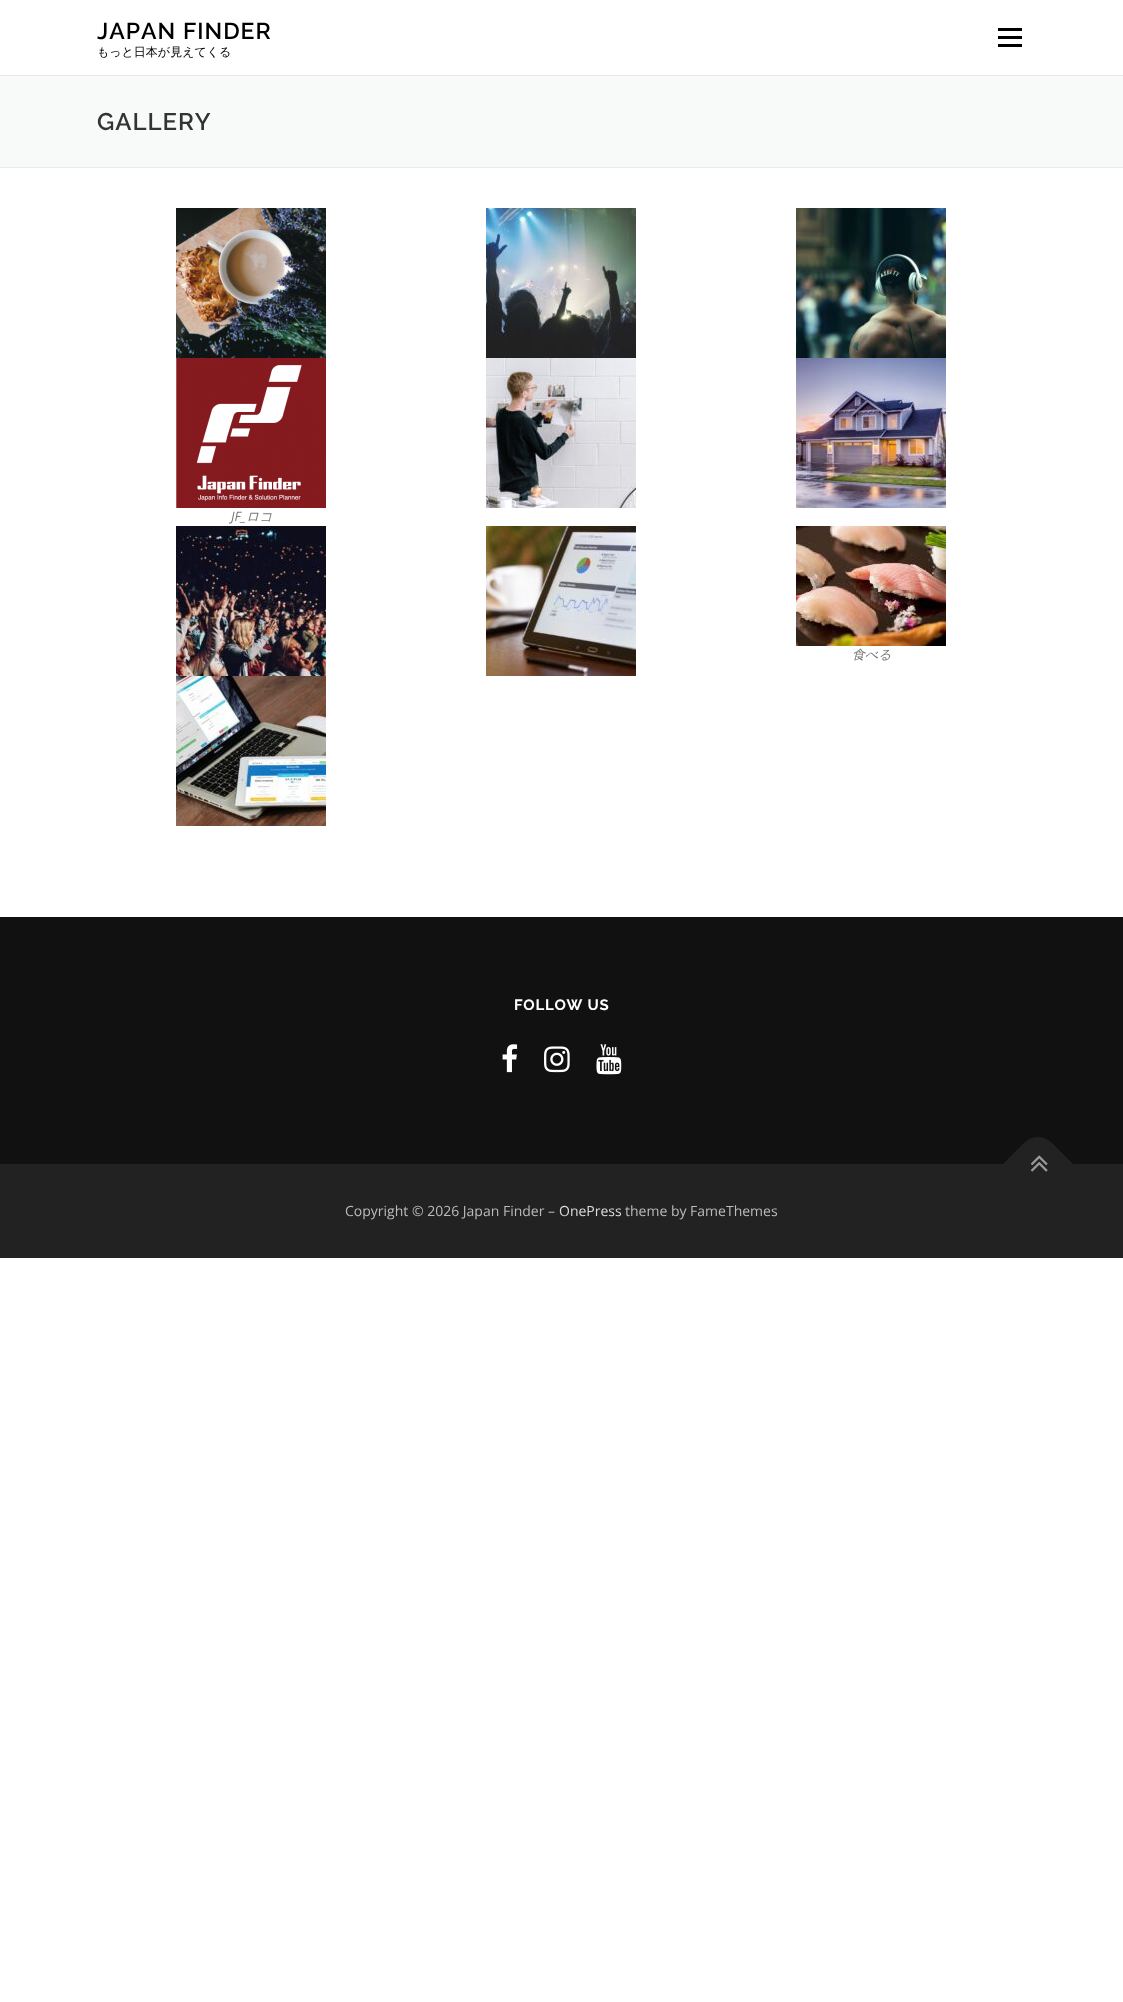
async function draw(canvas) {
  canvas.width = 1123;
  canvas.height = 2002;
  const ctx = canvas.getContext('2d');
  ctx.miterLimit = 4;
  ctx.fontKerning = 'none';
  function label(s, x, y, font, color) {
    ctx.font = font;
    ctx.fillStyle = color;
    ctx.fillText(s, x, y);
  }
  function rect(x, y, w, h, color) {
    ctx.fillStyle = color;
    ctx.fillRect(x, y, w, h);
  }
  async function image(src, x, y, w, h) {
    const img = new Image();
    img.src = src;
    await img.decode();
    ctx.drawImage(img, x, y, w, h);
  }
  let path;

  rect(0, 0, 1123, 2002, '#fff');
  ctx.letterSpacing = '1px';
  label('JAPAN FINDER', 97, 39, '600 23px Raleway', '#000');
  ctx.letterSpacing = '0px';
  label('もっと日本が見えてくる', 97, 56, '500 12px WenQuanYi Zen Hei', '#000');
  rect(998, 36, 24, 3, '#000');
  rect(998, 28, 24, 3, '#000');
  rect(998, 44, 24, 3, '#000');
  rect(0, 76, 1123, 91, '#f8f9f9');
  rect(0, 75, 1123, 1, '#e9e9e9');
  rect(0, 167, 1123, 1, '#e9e9e9');
  ctx.letterSpacing = '1px';
  label('GALLERY', 97, 130, '600 24px Raleway', '#333');
  await image('assets/img1.png', 176, 208, 150, 150);
  await image('assets/img2.png', 486, 208, 150, 150);
  await image('assets/img3.png', 796, 208, 150, 150);
  await image('assets/img4.png', 486, 358, 150, 150);
  await image('assets/img5.png', 796, 358, 150, 150);
  await image('assets/img6.png', 176, 358, 150, 150);
  ctx.letterSpacing = '0px';
  label('JF_', 231, 521, 'italic 13px Open Sans', '#777');
  label('ロゴ', 246, 521, 'italic 500 13px WenQuanYi Zen Hei', '#777');
  await image('assets/img7.png', 176, 526, 150, 150);
  await image('assets/img8.png', 486, 526, 150, 150);
  await image('assets/img9.png', 796, 526, 150, 120);
  label('食べる', 852, 659, 'italic 500 13px WenQuanYi Zen Hei', '#777');
  await image('assets/img10.png', 176, 676, 150, 150);
  rect(0, 917, 1123, 247, '#111');
  ctx.letterSpacing = '0.75px';
  label('FOLLOW US', 514, 1010, 'bold 15px Raleway', '#fff');
  await image('assets/img11.png', 502, 1044, 16, 29);
  await image('assets/img12.png', 544, 1046, 26, 27);
  await image('assets/img13.png', 596, 1044, 26, 31);
  rect(0, 1164, 1123, 94, '#222');
  path = new Path2D('M1003 1164L1024 1143C1032 1135 1044 1135 1052 1143L1073 1164L1038 1200Z');
  ctx.fill(path);
  await image('assets/img14.png', 1030, 1155, 18, 17);
  ctx.letterSpacing = '0px';
  label('Copyright © 2026 Japan Finder –', 345, 1216, '14px Open Sans', '#bbb');
  label('OnePress', 559, 1216, '14px Open Sans', '#ddd');
  label('theme by FameThemes', 625, 1216, '14px Open Sans', '#bbb');
}

draw(document.querySelector('canvas'));
